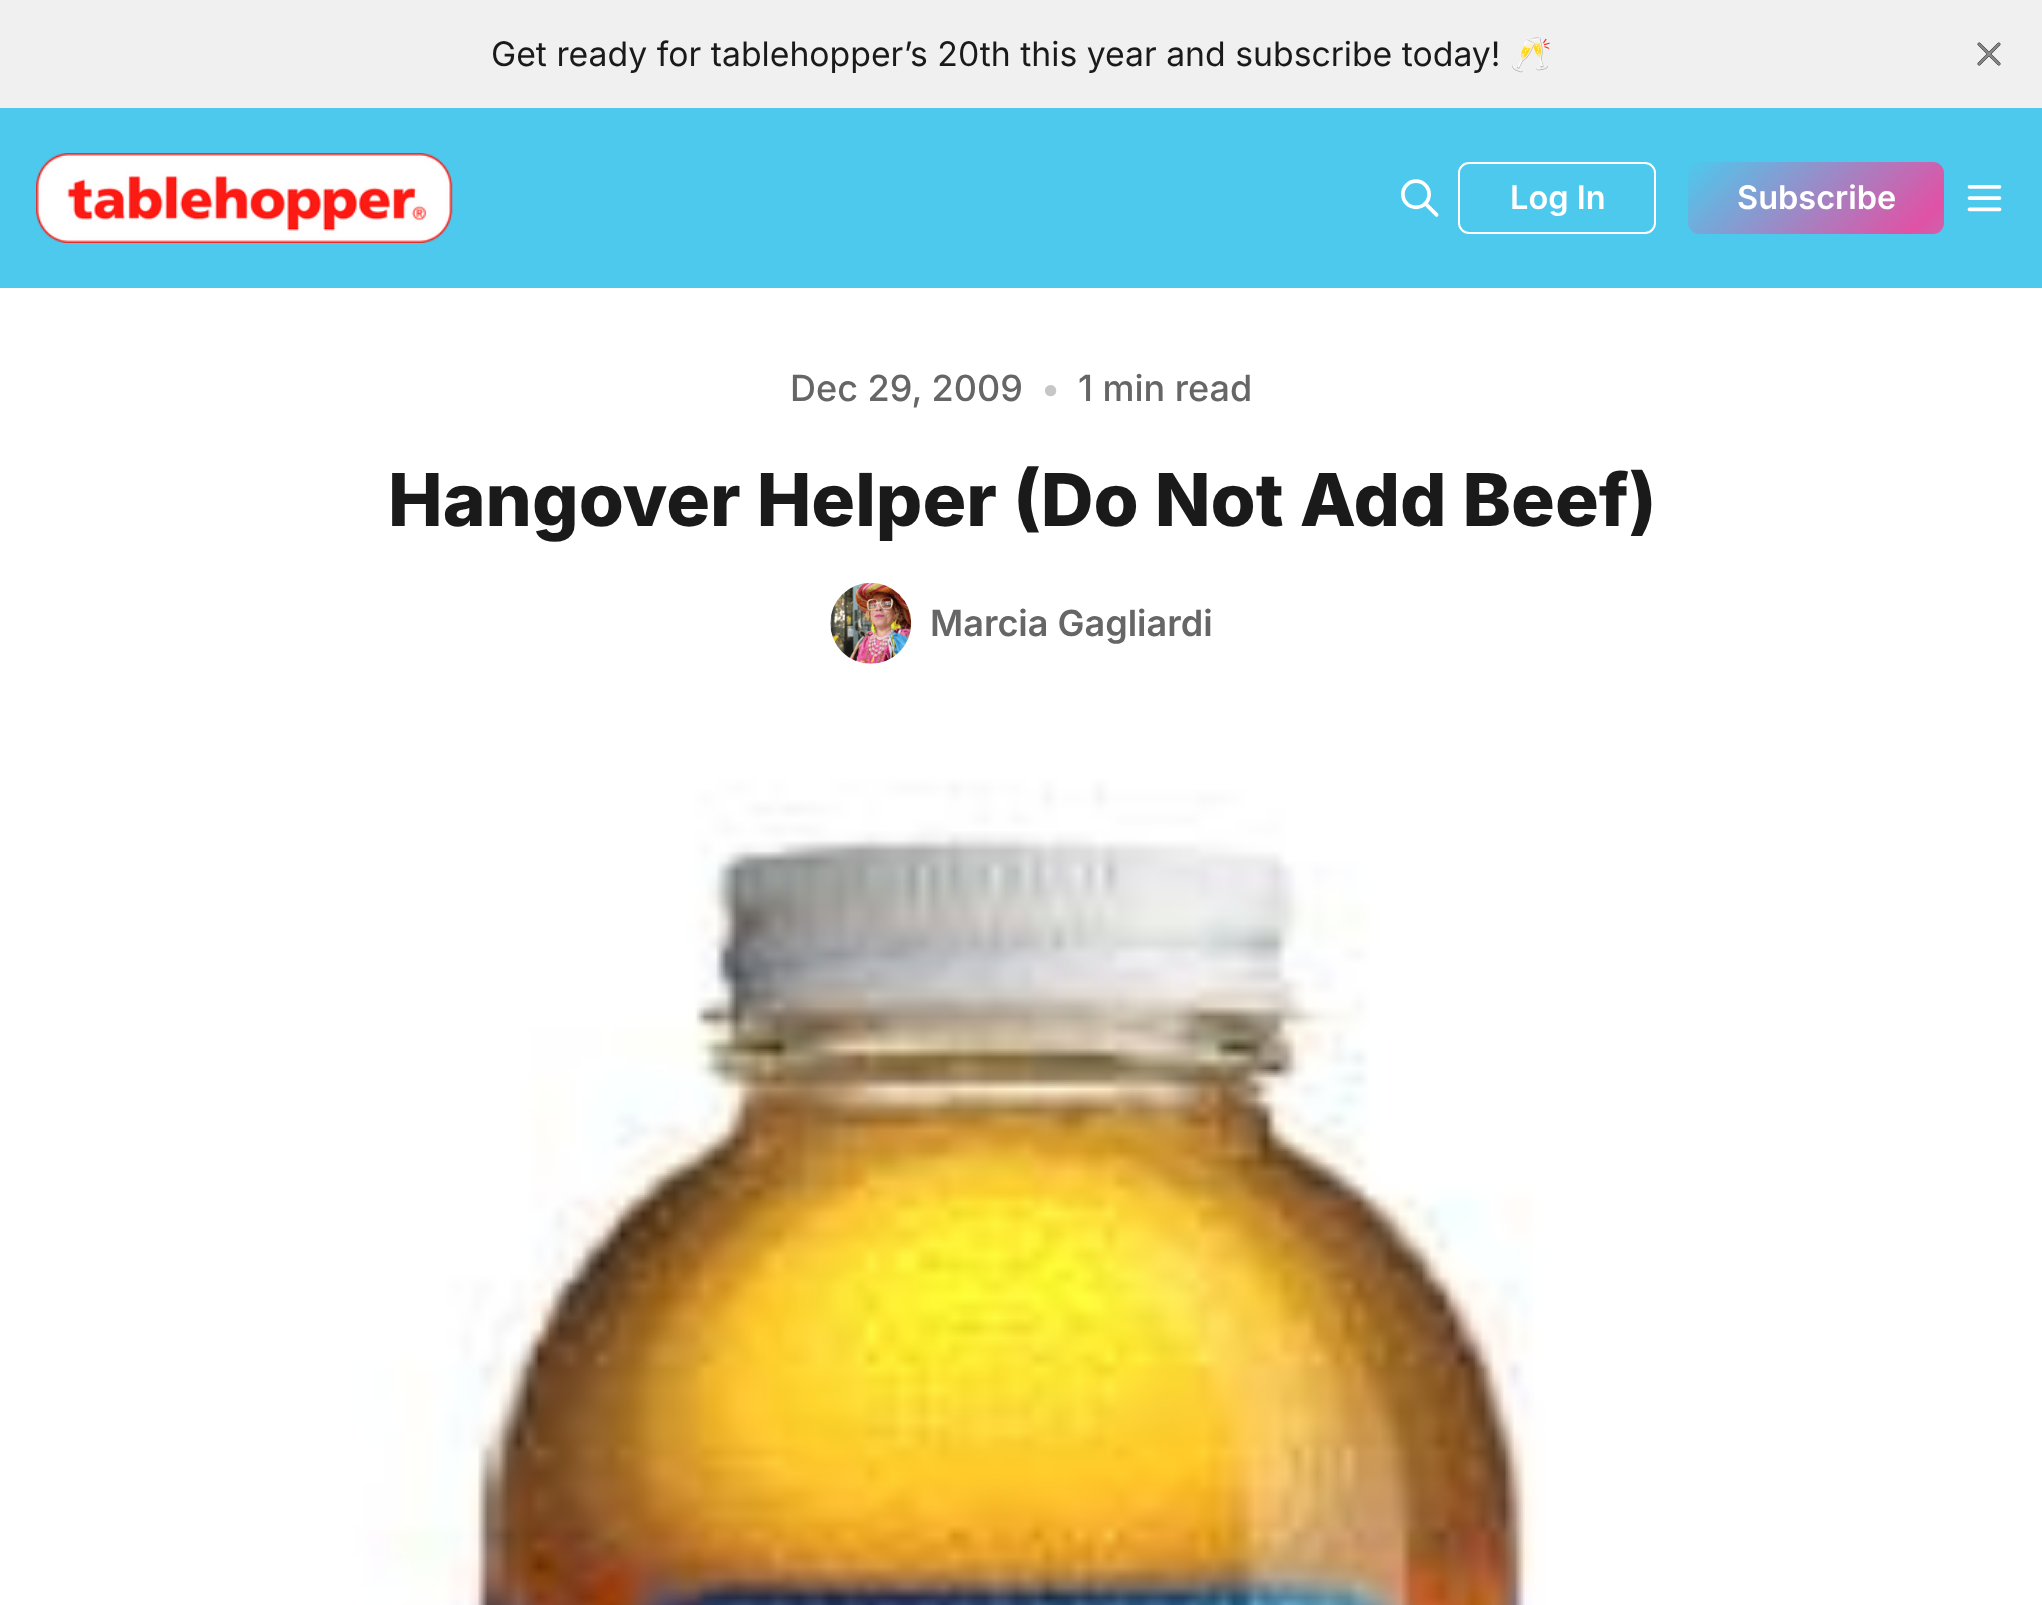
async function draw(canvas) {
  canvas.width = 2042;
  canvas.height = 1605;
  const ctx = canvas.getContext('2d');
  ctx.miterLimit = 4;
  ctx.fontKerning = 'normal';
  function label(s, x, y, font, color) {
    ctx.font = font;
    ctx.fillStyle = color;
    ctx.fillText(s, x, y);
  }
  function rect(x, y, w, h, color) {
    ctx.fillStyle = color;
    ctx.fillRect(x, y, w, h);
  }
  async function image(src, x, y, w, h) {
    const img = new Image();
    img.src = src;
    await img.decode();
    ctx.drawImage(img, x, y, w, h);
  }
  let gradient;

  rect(0, 0, 2042, 1605, '#fff');
  rect(0, 0, 2042, 108, '#f0f0f0');
  label('Get ready for tablehopper’s 20th this year and subscribe today!', 491, 66, '33.75px Inter', '#1a1a1a');
  label('🥂', 1510, 66, '33.75px Noto Color Emoji', '#1a1a1a');
  await image('assets/img1.png', 1977, 42, 24, 24);
  rect(0, 108, 2042, 180, '#4dc9ed');
  await image('assets/img2.png', 36, 153, 417, 90);
  await image('assets/img3.png', 1401, 179, 38, 38);
  ctx.beginPath();
  ctx.roundRect(1459, 163, 196, 70, 10);
  ctx.strokeStyle = '#fff';
  ctx.lineWidth = 2;
  ctx.stroke();
  label('Log In', 1510, 209, '600 32.5px Inter', '#fff');
  gradient = ctx.createLinearGradient(1798, 52, 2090, 344);
  gradient.addColorStop(0, '#4dc9ed');
  gradient.addColorStop(0.5, '#e052a5');
  gradient.addColorStop(1, '#4dc9ed');
  ctx.fillStyle = gradient;
  ctx.beginPath();
  ctx.roundRect(1688, 162, 256, 72, 11);
  ctx.fill();
  label('Subscribe', 1737, 209, '600 32.5px Inter', '#fff');
  await image('assets/img4.png', 1967, 185, 35, 27);
  label('Dec 29, 2009', 790, 401, '500 36px Inter', '#666');
  label('•', 1041, 401, '500 36px Inter', '#c6c6c6');
  label('1 min read', 1078, 401, '500 36px Inter', '#666');
  label('Hangover Helper (Do Not Add Beef)', 388, 526, '800 73px Inter', '#1a1a1a');
  await image('assets/img5.png', 830, 582, 82, 82);
  label('Marcia Gagliardi', 930, 636, '600 36px Inter', '#666');
  await image('assets/img6.png', 36, 700, 1971, 905);
}

draw(document.querySelector('canvas'));
